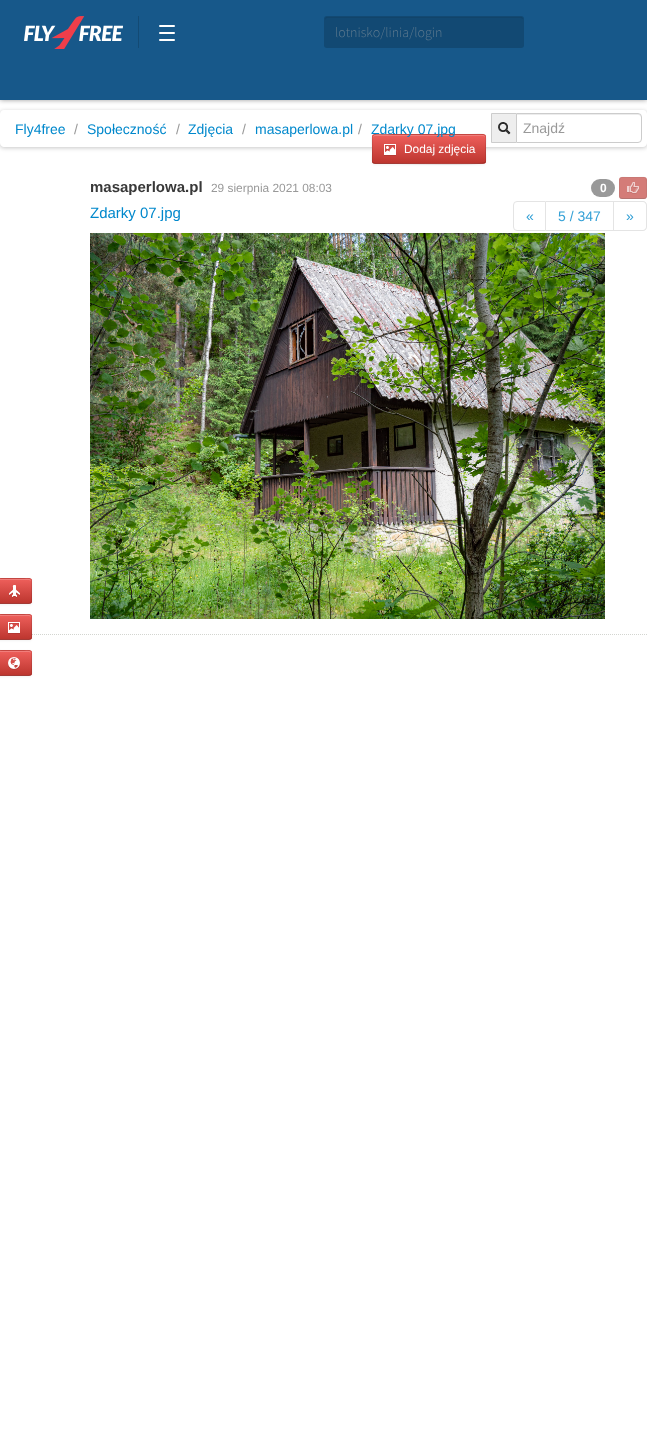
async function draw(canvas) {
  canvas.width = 647;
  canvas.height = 1445;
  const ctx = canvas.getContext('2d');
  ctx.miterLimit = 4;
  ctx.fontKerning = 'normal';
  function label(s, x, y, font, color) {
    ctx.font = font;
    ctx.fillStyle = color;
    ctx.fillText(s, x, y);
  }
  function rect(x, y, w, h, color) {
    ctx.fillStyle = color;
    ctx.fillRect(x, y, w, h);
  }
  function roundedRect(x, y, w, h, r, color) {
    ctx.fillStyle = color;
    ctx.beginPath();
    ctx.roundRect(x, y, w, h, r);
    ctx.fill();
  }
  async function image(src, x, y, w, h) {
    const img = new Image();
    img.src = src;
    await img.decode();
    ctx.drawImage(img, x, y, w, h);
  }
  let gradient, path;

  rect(0, 0, 647, 1445, '#fff');
  ctx.fillStyle = '#00000066';
  ctx.filter = 'blur(2.5px)';
  ctx.beginPath();
  ctx.rect(0, 0, 647, 100);
  ctx.fill();
  ctx.filter = 'none';
  rect(0, 0, 647, 100, '#17588a');
  await image('assets/img1.png', 24, 16, 99, 33);
  rect(138, 16, 1, 32, '#134a74');
  roundedRect(159, 39, 16, 2, 1, '#fff');
  roundedRect(159, 25, 16, 2, 1, '#fff');
  roundedRect(159, 32, 16, 2, 1, '#fff');
  roundedRect(324, 16, 200, 32, 3, '#124973');
  ctx.fillStyle = '#11446a';
  path = new Path2D('M327 18H521L523 19V20C523 19 523 17 521 17H327C325 17 325 19 325 20C325 19 326 18 327 18Z');
  ctx.fill(path);
  label('lotnisko/linia/login', 335, 37, '300 14px Source Sans Pro', '#5e7a8f');
  ctx.save();
  path = new Path2D('M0 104H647V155H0ZM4 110H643C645 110 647 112 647 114V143C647 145 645 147 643 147H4C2 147 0 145 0 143V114C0 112 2 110 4 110Z');
  ctx.clip(path, 'evenodd');
  ctx.fillStyle = '#00000038';
  ctx.filter = 'blur(2px)';
  ctx.beginPath();
  ctx.roundRect(0, 111, 647, 37, 4);
  ctx.fill();
  ctx.filter = 'none';
  ctx.restore();
  label('Fly4free', 15, 134, '14px Liberation Sans', '#08c');
  label('/', 74, 134, '14px Liberation Sans', '#999');
  label('Społeczność', 87, 134, '14px Liberation Sans', '#08c');
  label('/', 176, 134, '14px Liberation Sans', '#999');
  label('Zdjęcia', 188, 134, '14px Liberation Sans', '#08c');
  label('/', 242, 134, '14px Liberation Sans', '#999');
  label('masaperlowa.pl', 255, 134, '14px Liberation Sans', '#08c');
  label('/', 358, 134, '14px Liberation Sans', '#999');
  ctx.fillStyle = '#0000000d';
  ctx.filter = 'blur(1px)';
  ctx.beginPath();
  ctx.roundRect(372, 135, 114, 30, 3);
  ctx.fill();
  ctx.filter = 'none';
  roundedRect(372, 134, 114, 30, 3, '#da4f49');
  ctx.save();
  ctx.beginPath();
  ctx.roundRect(372, 134, 114, 30, 3);
  ctx.clip();
  gradient = ctx.createLinearGradient(429, 135, 429, 163);
  gradient.addColorStop(0, '#ee5f5b');
  gradient.addColorStop(1, '#bd362f');
  ctx.fillStyle = gradient;
  ctx.fillRect(372, 135, 114, 28);
  ctx.restore();
  ctx.fillStyle = '#ffffff33';
  path = new Path2D('M375 136H483C484 136 485 137 485 138C485 137 485 135 483 135H393C393 135 373 130 373 138C373 137 374 136 375 136Z');
  ctx.fill(path);
  path = new Path2D('M485 163H484.5C482.5 164.5 402 163.5 393 163.5H375L373 163');
  ctx.strokeStyle = '#00000040';
  ctx.stroke(path);
  path = new Path2D('M373 163C371.5 161 372.5 155 372.5 153C372.5 130 368 134.5 393 134.5H465C490 134.5 485.5 130 485.5 153C485.5 155 486.5 161 485 163');
  ctx.strokeStyle = '#0000001a';
  ctx.stroke(path);
  label('Zdarky 07.jpg', 371, 134, '14px Liberation Sans', '#08c');
  ctx.fillStyle = '#eee';
  ctx.beginPath();
  ctx.rect(491.5, 113.5, 25, 29);
  ctx.fill();
  ctx.strokeStyle = '#ccc';
  ctx.stroke();
  await image('assets/img2.png', 498, 122, 13, 13);
  ctx.fillStyle = '#fff';
  ctx.beginPath();
  ctx.roundRect(516, 113, 126, 30, [0, 4, 4, 0]);
  ctx.fill();
  ctx.fillStyle = '#ececec';
  path = new Path2D('M517 115H638C640 115 641 116 641 118V117C641 115 640 114 638 114H517Z');
  ctx.fill(path);
  ctx.beginPath();
  ctx.roundRect(516.5, 113.5, 125, 29, [0, 3.5, 3.5, 0]);
  ctx.stroke();
  label('Znajdź', 523, 133, '14px Liberation Sans', '#999');
  await image('assets/img3.png', 384, 144, 12, 12);
  label('Dodaj zdjęcia', 404, 153, '11.9px Liberation Sans', '#fff');
  path = new Path2D('M0 634.5H647');
  ctx.strokeStyle = '#d3d5d0';
  ctx.setLineDash([1, 1]);
  ctx.stroke(path);
  label('masaperlowa.pl', 90, 192, 'bold 15px Liberation Sans', '#383838');
  label('29 sierpnia 2021 08:03', 211, 192, '11.9px Liberation Sans', '#999');
  roundedRect(591, 179, 24, 18, 9, '#999');
  label('0', 600, 192, 'bold 12px Liberation Sans', '#fff');
  roundedRect(619, 177, 28, 22, 3, '#d47c78');
  path = new Path2D('M646 198C645.5 198 644.5 198.5 644 198.5H622C621.5 198.5 620.5 198 620 198');
  ctx.strokeStyle = '#59595940';
  ctx.setLineDash([]);
  ctx.stroke(path);
  path = new Path2D('M620 198C619 196.5 619.5 194.5 619.5 193.5V188C619.5 174.5 618.5 177.5 633 177.5C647.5 177.5 646.5 174.5 646.5 188V193.5C646.5 194.5 647 196.5 646 198');
  ctx.strokeStyle = '#5959591a';
  ctx.stroke(path);
  await image('assets/img4.png', 627, 182, 12, 12);
  label('Zdarky 07.jpg', 90, 218, '15px Liberation Sans', '#08c');
  ctx.beginPath();
  ctx.roundRect(513.5, 201.5, 32, 29, [3.5, 0, 0, 3.5]);
  ctx.strokeStyle = '#e4e4e4';
  ctx.stroke();
  label('«', 526, 221, '14px Liberation Sans', '#33a0d6');
  rect(546, 201, 68, 1, '#e4e4e4');
  rect(613, 201, 1, 30, '#e4e4e4');
  rect(546, 230, 68, 1, '#e4e4e4');
  label('5 / 347', 558, 221, '14px Liberation Sans', '#33a0d6');
  ctx.fillStyle = '#e4e4e4';
  path = new Path2D('M614 201H643C645 201 647 203 647 205V227C647 229 645 231 643 231H614ZM614 202H643C644.5 202 646 203.5 646 205V227C646 228.5 644.5 230 643 230H614Z');
  ctx.fill(path, 'evenodd');
  label('»', 626, 221, '14px Liberation Sans', '#33a0d6');
  await image('assets/img5.png', 90, 233, 515, 386);
  ctx.fillStyle = '#0000000d';
  ctx.filter = 'blur(1px)';
  ctx.beginPath();
  ctx.roundRect(-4, 579, 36, 26, 3);
  ctx.fill();
  ctx.filter = 'none';
  roundedRect(-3, 578, 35, 26, 3, '#da4f49');
  ctx.save();
  ctx.beginPath();
  ctx.roundRect(-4, 578, 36, 26, 3);
  ctx.clip();
  gradient = ctx.createLinearGradient(14, 579, 14, 603);
  gradient.addColorStop(0, '#ee5f5b');
  gradient.addColorStop(1, '#bd362f');
  ctx.fillStyle = gradient;
  ctx.fillRect(0, 579, 32, 24);
  ctx.restore();
  ctx.fillStyle = '#f17e7b';
  path = new Path2D('M-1 580H29C30 580 31 581 31 582C31 577.5 28 579 24 579H4C0 579-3 577.5-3 582C-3 581-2 580-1 580Z');
  ctx.fill(path);
  path = new Path2D('M31 603C30.5 603 29.5 603.5 29 603.5H-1C-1.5 603.5-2.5 603-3 603');
  ctx.strokeStyle = '#00000040';
  ctx.stroke(path);
  path = new Path2D('M-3 603C-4 601.5-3.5 599-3.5 597.5V584.5C-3.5 577.5-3 578.5 4 578.5H24C31 578.5 31.5 577.5 31.5 584.5V597.5C31.5 599 32 601.5 31 603');
  ctx.strokeStyle = '#0000001a';
  ctx.stroke(path);
  await image('assets/img6.png', 9, 585, 11, 13);
  ctx.fillStyle = '#0000000d';
  ctx.filter = 'blur(1px)';
  ctx.beginPath();
  ctx.roundRect(-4, 615, 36, 26, 3);
  ctx.fill();
  ctx.filter = 'none';
  roundedRect(-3, 614, 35, 26, 3, '#da4f49');
  ctx.save();
  ctx.beginPath();
  ctx.roundRect(-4, 614, 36, 26, 3);
  ctx.clip();
  gradient = ctx.createLinearGradient(14, 615, 14, 639);
  gradient.addColorStop(0, '#ee5f5b');
  gradient.addColorStop(1, '#bd362f');
  ctx.fillStyle = gradient;
  ctx.fillRect(0, 615, 32, 24);
  ctx.restore();
  ctx.fillStyle = '#f17e7b';
  path = new Path2D('M-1 616H29C30 616 31 617 31 618C31 613.5 28 615 24 615H4C0 615-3 613.5-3 618C-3 617-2 616-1 616Z');
  ctx.fill(path);
  path = new Path2D('M31 639C30.5 639 29.5 639.5 29 639.5H-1C-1.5 639.5-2.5 639-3 639');
  ctx.strokeStyle = '#00000040';
  ctx.stroke(path);
  path = new Path2D('M-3 639C-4 637.5-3.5 635-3.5 633.5V620.5C-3.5 613.5-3 614.5 4 614.5H24C31 614.5 31.5 613.5 31.5 620.5V633.5C31.5 635 32 637.5 31 639');
  ctx.strokeStyle = '#0000001a';
  ctx.stroke(path);
  await image('assets/img7.png', 8, 622, 12, 12);
  ctx.fillStyle = '#0000000d';
  ctx.filter = 'blur(1px)';
  ctx.beginPath();
  ctx.roundRect(-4, 651, 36, 26, 3);
  ctx.fill();
  ctx.filter = 'none';
  roundedRect(-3, 650, 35, 26, 3, '#da4f49');
  ctx.save();
  ctx.beginPath();
  ctx.roundRect(-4, 650, 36, 26, 3);
  ctx.clip();
  gradient = ctx.createLinearGradient(14, 651, 14, 675);
  gradient.addColorStop(0, '#ee5f5b');
  gradient.addColorStop(1, '#bd362f');
  ctx.fillStyle = gradient;
  ctx.fillRect(0, 651, 32, 24);
  ctx.restore();
  ctx.fillStyle = '#f17e7b';
  path = new Path2D('M-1 652H29C30 652 31 653 31 654C31 649.5 28 651 24 651H4C0 651-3 649.5-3 654C-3 653-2 652-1 652Z');
  ctx.fill(path);
  path = new Path2D('M31 675C30.5 675 29.5 675.5 29 675.5H-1C-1.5 675.5-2.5 675-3 675');
  ctx.strokeStyle = '#00000040';
  ctx.stroke(path);
  path = new Path2D('M-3 675C-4 673.5-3.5 671-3.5 669.5V656.5C-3.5 649.5-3 650.5 4 650.5H24C31 650.5 31.5 649.5 31.5 656.5V669.5C31.5 671 32 673.5 31 675');
  ctx.strokeStyle = '#0000001a';
  ctx.stroke(path);
  await image('assets/img8.png', 8, 657, 12, 13);
}

draw(document.querySelector('canvas'));
